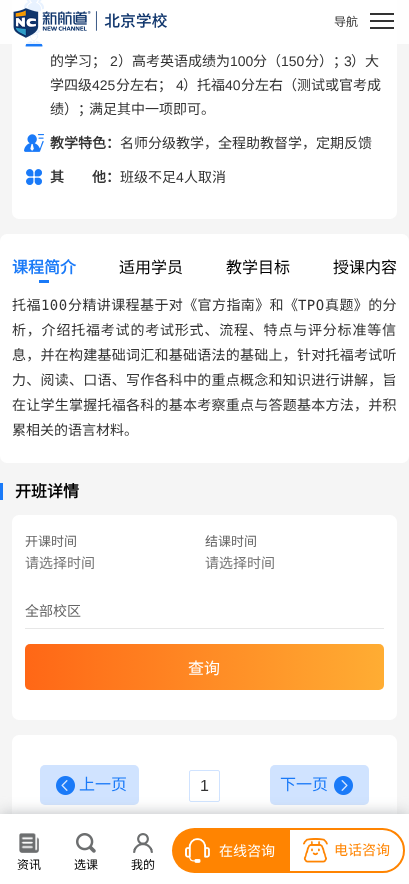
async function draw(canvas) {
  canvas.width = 409;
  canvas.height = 884;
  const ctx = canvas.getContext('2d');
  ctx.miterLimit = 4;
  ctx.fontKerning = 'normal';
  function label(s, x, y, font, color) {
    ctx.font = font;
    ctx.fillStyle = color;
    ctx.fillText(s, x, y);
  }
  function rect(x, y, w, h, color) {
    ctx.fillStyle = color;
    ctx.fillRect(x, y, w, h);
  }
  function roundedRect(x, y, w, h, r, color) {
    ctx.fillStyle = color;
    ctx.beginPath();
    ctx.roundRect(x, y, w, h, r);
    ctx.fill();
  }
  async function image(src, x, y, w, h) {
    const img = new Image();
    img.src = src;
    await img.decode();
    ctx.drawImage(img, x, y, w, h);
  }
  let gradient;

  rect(0, 0, 409, 884, '#f5f5f5');
  roundedRect(12, -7, 385, 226, 7, '#fff');
  await image('assets/img2.png', 24, 0, 20, 12);
  await image('assets/img3.png', 25, 29, 18, 18);
  rect(0, 0, 409, 44, '#ffffffe6');
  await image('assets/img1.png', 13, 8, 154, 30);
  rect(370, 20, 24, 2, '#333');
  rect(370, 13, 24, 2, '#333');
  rect(370, 27, 24, 2, '#333');
  label('导航', 334, 26, '12px Noto Sans CJK SC', '#333');
  label('的学习；', 50, 66, '14px Noto Sans CJK SC', '#333');
  label('2', 110, 66, '14px Liberation Sans', '#333');
  label('）高考英语成绩为', 118, 66, '14px Noto Sans CJK SC', '#333');
  label('100', 230, 66, '14px Liberation Sans', '#333');
  label('分（', 253, 66, '14px Noto Sans CJK SC', '#333');
  label('150', 281, 66, '14px Liberation Sans', '#333');
  label('分）；', 305, 66, '14px Noto Sans CJK SC', '#333');
  label('3', 344, 66, '14px Liberation Sans', '#333');
  label('）大', 351, 66, '14px Noto Sans CJK SC', '#333');
  label('学四级', 50, 90, '14px Noto Sans CJK SC', '#333');
  label('425', 92, 90, '14px Liberation Sans', '#333');
  label('分左右；', 116, 90, '14px Noto Sans CJK SC', '#333');
  label('4', 176, 90, '14px Liberation Sans', '#333');
  label('）托福', 183, 90, '14px Noto Sans CJK SC', '#333');
  label('40', 225, 90, '14px Liberation Sans', '#333');
  label('分左右（测试或官考成', 241, 90, '14px Noto Sans CJK SC', '#333');
  label('绩）；', 50, 114, '14px Noto Sans CJK SC', '#333');
  label('满足其中一项即可。', 89, 114, '14px Noto Sans CJK SC', '#333');
  await image('assets/img4.png', 24, 134, 20, 18);
  label('教学特色：', 50, 148, 'bold 14px Noto Sans CJK SC', '#333');
  label('名师分级教学，全程助教督学，定期反馈', 120, 148, '14px Noto Sans CJK SC', '#333');
  await image('assets/img5.png', 26, 169, 16, 16);
  label('其', 50, 182, 'bold 14px Noto Sans CJK SC', '#333');
  label('他：', 92, 182, 'bold 14px Noto Sans CJK SC', '#333');
  label('班级不足', 120, 182, '14px Noto Sans CJK SC', '#333');
  label('4', 176, 182, '14px Liberation Sans', '#333');
  label('人取消', 184, 182, '14px Noto Sans CJK SC', '#333');
  roundedRect(0, 234, 409, 229, 7, '#fff');
  label('课程简介', 12, 273, 'bold 16px Noto Sans CJK SC', '#1a7af8');
  rect(39, 280, 10, 3, '#1a7af8');
  label('适用学员', 119, 273, '16px Noto Sans CJK SC', '#000');
  label('教学目标', 226, 273, '16px Noto Sans CJK SC', '#000');
  label('授课内容', 333, 273, '16px Noto Sans CJK SC', '#000');
  ctx.letterSpacing = '0.4px';
  label('托福', 12, 310, '14px Noto Sans CJK SC', '#333');
  label('100', 41, 310, '14px DejaVu Sans Mono', '#333');
  label('分精讲课程基于对《官方指南》和《', 68, 310, '14px Noto Sans CJK SC', '#333');
  label('TPO', 298, 310, '14px DejaVu Sans Mono', '#333');
  label('真题》的分', 325, 310, '14px Noto Sans CJK SC', '#333');
  ctx.letterSpacing = '0.8px';
  label('析，介绍托福考试的考试形式、流程、特点与评分标准等信', 12, 335, '14px Noto Sans CJK SC', '#333');
  ctx.letterSpacing = '0.25px';
  label('息，并在构建基础词汇和基础语法的基础上，针对托福考试听', 12, 360, '14px Noto Sans CJK SC', '#333');
  label('力、阅读、口语、写作各科中的重点概念和知识进行讲解，旨', 12, 385, '14px Noto Sans CJK SC', '#333');
  label('在让学生掌握托福各科的基本考察重点与答题基本方法，并积', 12, 410, '14px Noto Sans CJK SC', '#333');
  ctx.letterSpacing = '0px';
  label('累相关的语言材料。', 12, 435, '14px Noto Sans CJK SC', '#333');
  rect(0, 483, 3, 17, '#1a7af8');
  label('开班详情', 15, 497, 'bold 16px Noto Sans CJK SC', '#000');
  roundedRect(12, 515, 385, 205, 7, '#fff');
  label('开课时间', 25, 546, '13px Noto Sans CJK SC', '#666');
  label('请选择时间', 25, 568, '14px Noto Sans CJK SC', '#757575');
  label('结课时间', 205, 546, '13px Noto Sans CJK SC', '#666');
  label('请选择时间', 205, 568, '14px Noto Sans CJK SC', '#757575');
  rect(25, 628, 359, 1, '#e7e7e7');
  label('全部校区', 25, 616, '14px Noto Sans CJK SC', '#666');
  gradient = ctx.createLinearGradient(25, 667, 384, 667);
  gradient.addColorStop(0, '#ff6716');
  gradient.addColorStop(1, '#ffad33');
  ctx.fillStyle = gradient;
  ctx.beginPath();
  ctx.roundRect(25, 644, 359, 46, 5);
  ctx.fill();
  label('查询', 188, 674, '16px Noto Sans CJK SC', '#fff');
  roundedRect(12, 735, 385, 115, 7, '#fff');
  roundedRect(40, 765, 99, 40, 5, '#d0e3ff');
  await image('assets/img6.png', 56, 776, 19, 19);
  label('上一页', 79, 790, '16px Noto Sans CJK SC', '#1a7af8');
  ctx.beginPath();
  ctx.roundRect(189.5, 770.5, 30, 31, 1.5);
  ctx.strokeStyle = '#d0e3ff';
  ctx.stroke();
  label('1', 200, 791, '16px Liberation Sans', '#333');
  roundedRect(270, 765, 99, 40, 5, '#d0e3ff');
  await image('assets/img7.png', 334, 776, 19, 19);
  label('下一页', 280, 790, '16px Noto Sans CJK SC', '#1a7af8');
  ctx.fillStyle = '#b7babd';
  ctx.filter = 'blur(7.5px)';
  ctx.beginPath();
  ctx.rect(0, 814, 409, 70);
  ctx.fill();
  ctx.filter = 'none';
  rect(0, 814, 409, 70, '#fff');
  ctx.fillStyle = '#ff8401';
  ctx.beginPath();
  ctx.roundRect(172, 828, 116, 45, [22.5, 0, 0, 22.5]);
  ctx.fill();
  await image('assets/img8.png', 185, 838, 25, 25);
  label('在线咨询', 219, 856, '14px Noto Sans CJK SC', '#fff');
  ctx.beginPath();
  ctx.roundRect(289, 829, 115, 43, [0, 21.5, 21.5, 0]);
  ctx.strokeStyle = '#ff8401';
  ctx.lineWidth = 2;
  ctx.stroke();
  await image('assets/img9.png', 303, 838, 25, 25);
  label('电话咨询', 334, 855, '14px Noto Sans CJK SC', '#ff8401');
  await image('assets/img10.png', 19, 833, 20, 20);
  label('资讯', 17, 869, '12px Noto Sans CJK SC', '#000');
  await image('assets/img11.png', 76, 833, 20, 20);
  label('选课', 74, 869, '12px Noto Sans CJK SC', '#000');
  await image('assets/img12.png', 133, 833, 20, 20);
  label('我的', 131, 869, '12px Noto Sans CJK SC', '#000');
}

draw(document.querySelector('canvas'));
